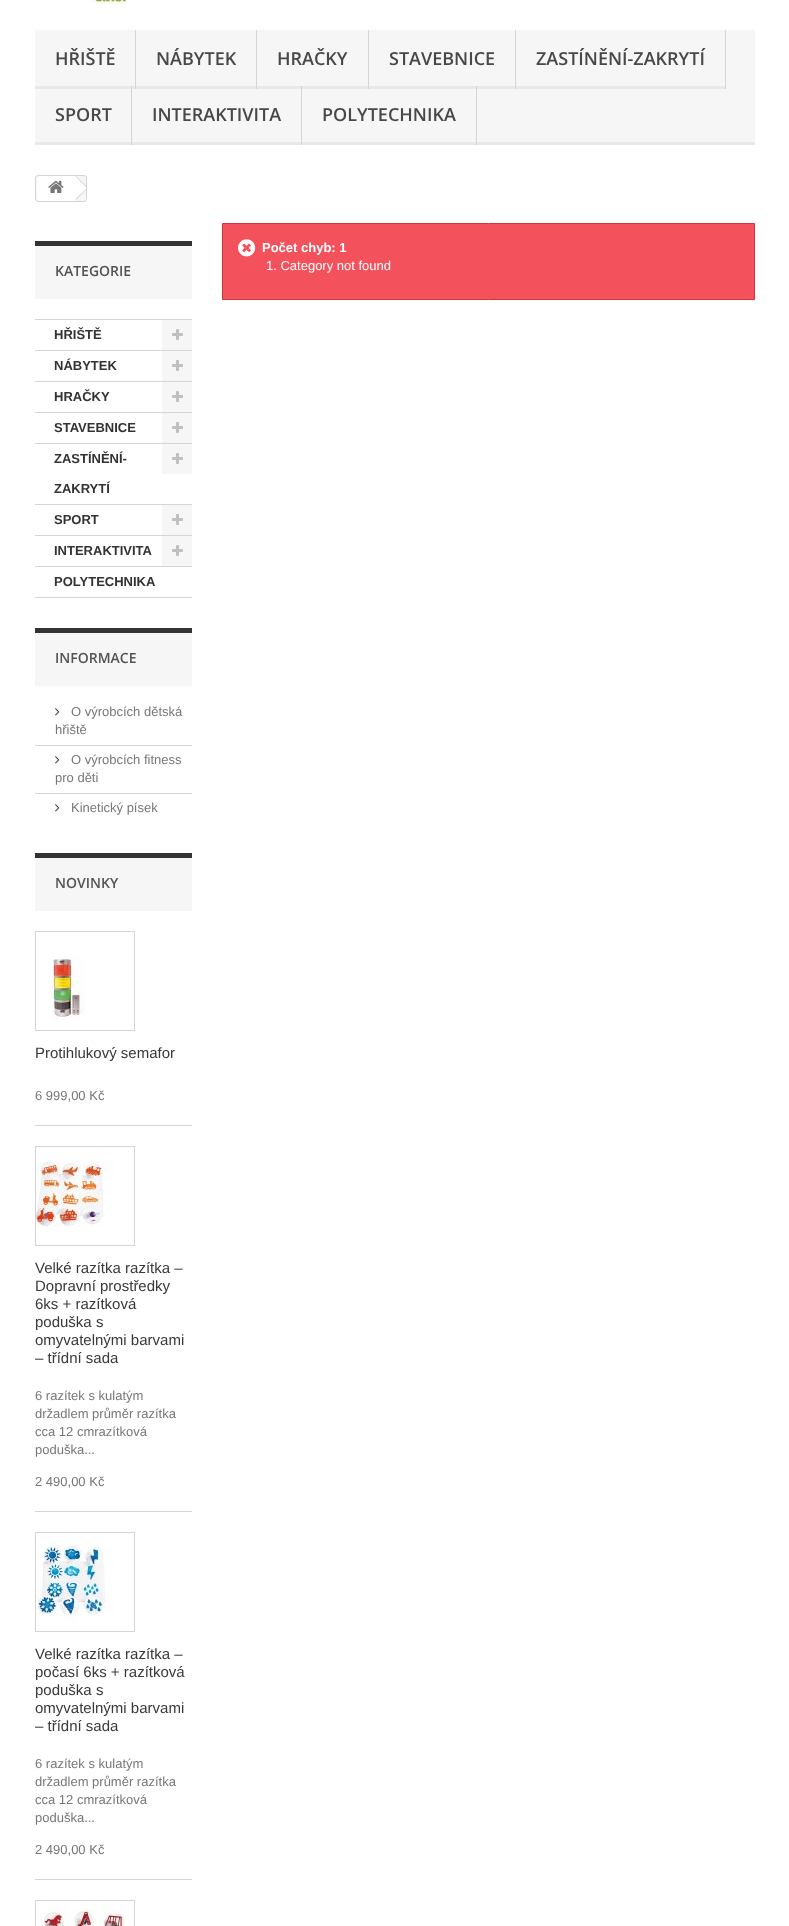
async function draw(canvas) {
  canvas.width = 789;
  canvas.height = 1926;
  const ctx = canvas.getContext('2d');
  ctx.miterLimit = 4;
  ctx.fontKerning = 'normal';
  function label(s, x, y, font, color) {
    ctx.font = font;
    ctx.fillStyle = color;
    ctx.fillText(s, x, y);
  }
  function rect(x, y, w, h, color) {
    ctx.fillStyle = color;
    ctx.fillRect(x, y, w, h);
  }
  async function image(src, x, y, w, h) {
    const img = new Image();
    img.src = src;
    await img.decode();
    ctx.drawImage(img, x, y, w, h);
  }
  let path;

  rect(0, 0, 789, 1926, '#fff');
  await image('assets/img1.png', 91, 0, 40, 5);
  rect(35, 30, 720, 112, '#f6f6f6');
  rect(35, 142, 720, 3, '#e9e9e9');
  rect(135, 30, 1, 59, '#d6d4d4');
  rect(35, 86, 100, 3, '#e9e9e9');
  label('HŘIŠTĚ', 55, 65, '600 18px Open Sans', '#484848');
  rect(256, 30, 1, 59, '#d6d4d4');
  rect(136, 86, 120, 3, '#e9e9e9');
  label('NÁBYTEK', 156, 65, '600 18px Open Sans', '#484848');
  rect(368, 30, 1, 59, '#d6d4d4');
  rect(257, 86, 111, 3, '#e9e9e9');
  label('HRAČKY', 277, 65, '600 18px Open Sans', '#484848');
  rect(515, 30, 1, 59, '#d6d4d4');
  rect(369, 86, 146, 3, '#e9e9e9');
  label('STAVEBNICE', 389, 65, '600 18px Open Sans', '#484848');
  rect(725, 30, 1, 59, '#d6d4d4');
  rect(516, 86, 209, 3, '#e9e9e9');
  label('ZASTÍNĚNÍ-ZAKRYTÍ', 536, 65, '600 18px Open Sans', '#484848');
  rect(131, 86, 1, 59, '#d6d4d4');
  label('SPORT', 55, 121, '600 18px Open Sans', '#484848');
  rect(301, 86, 1, 59, '#d6d4d4');
  label('INTERAKTIVITA', 152, 121, '600 18px Open Sans', '#484848');
  rect(476, 86, 1, 59, '#d6d4d4');
  label('POLYTECHNIKA', 322, 121, '600 18px Open Sans', '#484848');
  ctx.fillStyle = '#f6f6f6';
  ctx.beginPath();
  ctx.roundRect(35.5, 175.5, 51, 26, 2.5);
  ctx.fill();
  ctx.strokeStyle = '#d6d4d4';
  ctx.stroke();
  ctx.fillStyle = '#fff';
  ctx.beginPath();
  ctx.roundRect(37, 176, 38, 25, [3, 0, 0, 3]);
  ctx.fill();
  path = new Path2D('M77 176.5L76.5 176H74.5L64 186.5C62.5 189.5 67.5 193 69 194L72.5 197.5C75.5 200.5 75.5 200.5 78.5 197.5L86 190.5V185.5Z');
  ctx.fill(path);
  await image('assets/img2.png', 48, 180, 16, 13);
  ctx.fillStyle = '#d6d4d4';
  path = new Path2D('M76 176L86 185.5V187L75.5 176.5ZM86 189V190L76 200L75.5 199Z');
  ctx.fill(path);
  ctx.fillStyle = '#f3515c';
  ctx.beginPath();
  ctx.rect(222.5, 223.5, 532, 76);
  ctx.fill();
  ctx.strokeStyle = '#d4323d';
  ctx.stroke();
  await image('assets/img3.png', 238, 239, 18, 18);
  label('Počet chyb: 1', 262, 252, 'bold 13px Liberation Sans', '#fff');
  label('1. Category not found', 266, 270, '13px Liberation Sans', '#fff');
  rect(35, 246, 157, 53, '#f6f6f6');
  rect(35, 241, 157, 5, '#333');
  label('KATEGORIE', 55, 276, '600 14px Open Sans', '#555454');
  rect(35, 319, 157, 1, '#d6d4d4');
  rect(35, 350, 157, 1, '#d6d4d4');
  label('HŘIŠTĚ', 54, 339, 'bold 13px Liberation Sans', '#333');
  rect(162, 320, 30, 30, '#f6f6f6');
  await image('assets/img4.png', 172, 329, 11, 11);
  rect(35, 381, 157, 1, '#d6d4d4');
  label('NÁBYTEK', 54, 370, 'bold 13px Liberation Sans', '#333');
  rect(162, 351, 30, 30, '#f6f6f6');
  await image('assets/img4.png', 172, 360, 11, 11);
  rect(35, 412, 157, 1, '#d6d4d4');
  label('HRAČKY', 54, 401, 'bold 13px Liberation Sans', '#333');
  rect(162, 382, 30, 30, '#f6f6f6');
  await image('assets/img4.png', 172, 391, 11, 11);
  rect(35, 443, 157, 1, '#d6d4d4');
  label('STAVEBNICE', 54, 432, 'bold 13px Liberation Sans', '#333');
  rect(162, 413, 30, 30, '#f6f6f6');
  await image('assets/img4.png', 172, 422, 11, 11);
  rect(35, 504, 157, 1, '#d6d4d4');
  label('ZASTÍNĚNÍ-', 54, 463, 'bold 13px Liberation Sans', '#333');
  label('ZAKRYTÍ', 54, 493, 'bold 13px Liberation Sans', '#333');
  rect(162, 444, 30, 30, '#f6f6f6');
  await image('assets/img4.png', 172, 453, 11, 11);
  rect(35, 535, 157, 1, '#d6d4d4');
  label('SPORT', 54, 524, 'bold 13px Liberation Sans', '#333');
  rect(162, 505, 30, 30, '#f6f6f6');
  await image('assets/img4.png', 172, 514, 11, 11);
  rect(35, 566, 157, 1, '#d6d4d4');
  label('INTERAKTIVITA', 54, 555, 'bold 13px Liberation Sans', '#333');
  rect(162, 536, 30, 30, '#f6f6f6');
  await image('assets/img4.png', 172, 545, 11, 11);
  rect(35, 597, 157, 1, '#d6d4d4');
  label('POLYTECHNIKA', 54, 586, 'bold 13px Liberation Sans', '#333');
  rect(35, 633, 157, 53, '#f6f6f6');
  rect(35, 628, 157, 5, '#333');
  label('INFORMACE', 55, 663, '600 14px Open Sans', '#555454');
  await image('assets/img5.png', 55, 708, 5, 8);
  label('O výrobcích dětská', 71, 716, '13px Liberation Sans', '#777');
  label('hřiště', 55, 734, '13px Liberation Sans', '#777');
  rect(35, 745, 157, 1, '#d6d4d4');
  await image('assets/img5.png', 55, 756, 5, 8);
  label('O výrobcích fitness', 71, 764, '13px Liberation Sans', '#777');
  label('pro děti', 55, 782, '13px Liberation Sans', '#777');
  rect(35, 793, 157, 1, '#d6d4d4');
  await image('assets/img5.png', 55, 804, 5, 8);
  label('Kinetický písek', 71, 812, '13px Liberation Sans', '#777');
  rect(35, 858, 157, 53, '#f6f6f6');
  rect(35, 853, 157, 5, '#333');
  label('NOVINKY', 55, 888, '600 14px Open Sans', '#555454');
  rect(35, 1125, 157, 1, '#d6d4d4');
  ctx.strokeStyle = '#d6d4d4';
  ctx.strokeRect(35.5, 931.5, 99, 99);
  await image('assets/img6.png', 52, 956, 33, 63);
  label('Protihlukový semafor', 35, 1058, '15px Liberation Sans', '#3a3939');
  label('6 999,00 Kč', 35, 1100, '13px Liberation Sans', '#777');
  rect(35, 1511, 157, 1, '#d6d4d4');
  ctx.strokeRect(35.5, 1146.5, 99, 99);
  await image('assets/img7.png', 36, 1161, 80, 67);
  label('Velké razítka razítka –', 35, 1273, '15px Liberation Sans', '#3a3939');
  label('Dopravní prostředky', 35, 1291, '15px Liberation Sans', '#3a3939');
  label('6ks + razítková', 35, 1309, '15px Liberation Sans', '#3a3939');
  label('poduška s', 35, 1327, '15px Liberation Sans', '#3a3939');
  label('omyvatelnými barvami', 35, 1345, '15px Liberation Sans', '#3a3939');
  label('– třídní sada', 35, 1363, '15px Liberation Sans', '#3a3939');
  label('6 razítek s kulatým', 35, 1400, '13px Liberation Sans', '#777');
  label('držadlem průměr razítka', 35, 1418, '13px Liberation Sans', '#777');
  label('cca 12 cmrazítková', 35, 1436, '13px Liberation Sans', '#777');
  label('poduška...', 35, 1454, '13px Liberation Sans', '#777');
  label('2 490,00 Kč', 35, 1486, '13px Liberation Sans', '#777');
  rect(35, 1879, 157, 1, '#d6d4d4');
  ctx.strokeRect(35.5, 1532.5, 99, 99);
  await image('assets/img8.png', 36, 1542, 80, 78);
  label('Velké razítka razítka –', 35, 1659, '15px Liberation Sans', '#3a3939');
  label('počasí 6ks + razítková', 35, 1677, '15px Liberation Sans', '#3a3939');
  label('poduška s', 35, 1695, '15px Liberation Sans', '#3a3939');
  label('omyvatelnými barvami', 35, 1713, '15px Liberation Sans', '#3a3939');
  label('– třídní sada', 35, 1731, '15px Liberation Sans', '#3a3939');
  label('6 razítek s kulatým', 35, 1768, '13px Liberation Sans', '#777');
  label('držadlem průměr razítka', 35, 1786, '13px Liberation Sans', '#777');
  label('cca 12 cmrazítková', 35, 1804, '13px Liberation Sans', '#777');
  label('poduška...', 35, 1822, '13px Liberation Sans', '#777');
  label('2 490,00 Kč', 35, 1854, '13px Liberation Sans', '#777');
  ctx.strokeRect(35.5, 1900.5, 99, 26);
  await image('assets/img9.png', 38, 1901, 94, 25);
}

draw(document.querySelector('canvas'));
